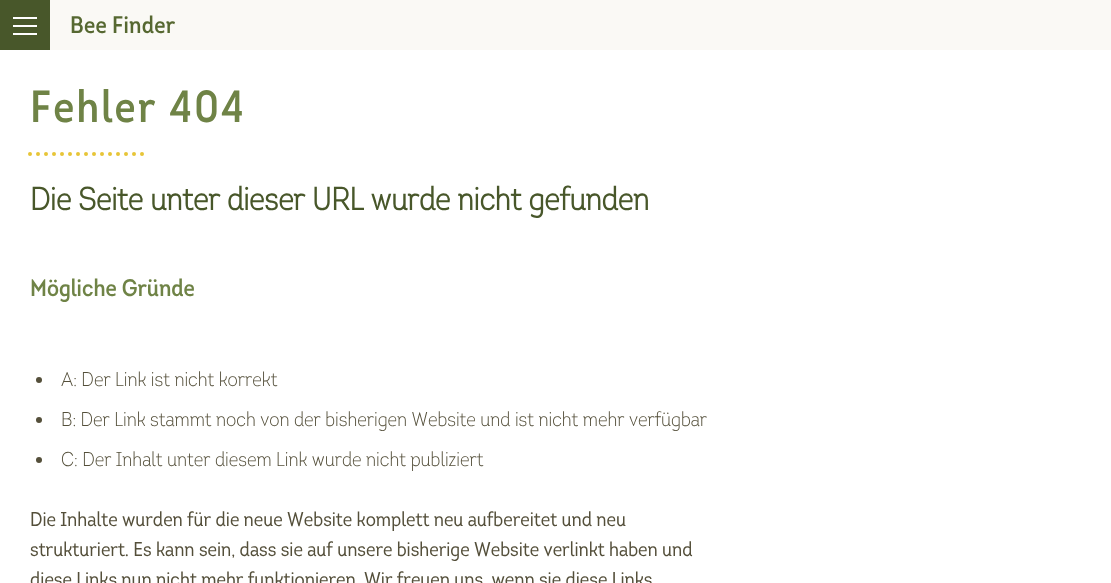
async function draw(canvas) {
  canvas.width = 1111;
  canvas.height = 583;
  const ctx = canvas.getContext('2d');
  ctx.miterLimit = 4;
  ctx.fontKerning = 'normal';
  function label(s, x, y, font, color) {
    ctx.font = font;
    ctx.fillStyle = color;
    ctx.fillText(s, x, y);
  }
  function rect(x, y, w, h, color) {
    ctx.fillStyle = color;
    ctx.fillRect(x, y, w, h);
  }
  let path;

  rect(0, 0, 1111, 583, '#fff');
  rect(0, 0, 50, 50, '#48572a');
  rect(13, 17, 24, 2, '#fff');
  rect(13, 25, 24, 2, '#fff');
  rect(13, 33, 24, 2, '#fff');
  rect(50, 0, 1061, 50, '#faf9f5');
  ctx.letterSpacing = '0.25px';
  label('Bee Finder', 70, 33, '24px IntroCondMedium', '#566831');
  ctx.letterSpacing = '2.25px';
  label('Fehler 404', 30, 122, '45px IntroCondMedium', '#6f8346');
  path = new Path2D('M30 154H143');
  ctx.strokeStyle = '#e7c537';
  ctx.lineWidth = 4;
  ctx.lineCap = 'round';
  ctx.setLineDash([0, 8]);
  ctx.stroke(path);
  ctx.letterSpacing = '0px';
  label('Die Seite unter dieser URL wurde nicht gefunden', 30, 210, 'bold 32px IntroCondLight', '#48572a');
  label('Mögliche Gründe', 30, 296, '24px IntroCondMedium', '#6f8346');
  ctx.fillStyle = '#544f3a';
  ctx.beginPath();
  ctx.arc(39, 380, 3, 0, 2 * Math.PI);
  ctx.fill();
  label('A: Der Link ist nicht korrekt', 61, 386, '20px IntroCondLight', '#544f3a');
  ctx.beginPath();
  ctx.arc(39, 420, 3, 0, 2 * Math.PI);
  ctx.fill();
  label('B: Der Link stammt noch von der bisherigen Website und ist nicht mehr verfügbar', 61, 426, '20px IntroCondLight', '#544f3a');
  ctx.beginPath();
  ctx.arc(39, 460, 3, 0, 2 * Math.PI);
  ctx.fill();
  label('C: Der Inhalt unter diesem Link wurde nicht publiziert', 61, 466, '20px IntroCondLight', '#544f3a');
  label('Die Inhalte wurden für die neue Website komplett neu aufbereitet und neu', 30, 526, '20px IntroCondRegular', '#544f3a');
  label('strukturiert. Es kann sein, dass sie auf unsere bisherige Website verlinkt haben und', 30, 556, '20px IntroCondRegular', '#544f3a');
  label('diese Links nun nicht mehr funktionieren. Wir freuen uns, wenn sie diese Links', 30, 586, '20px IntroCondRegular', '#544f3a');
}

draw(document.querySelector('canvas'));
